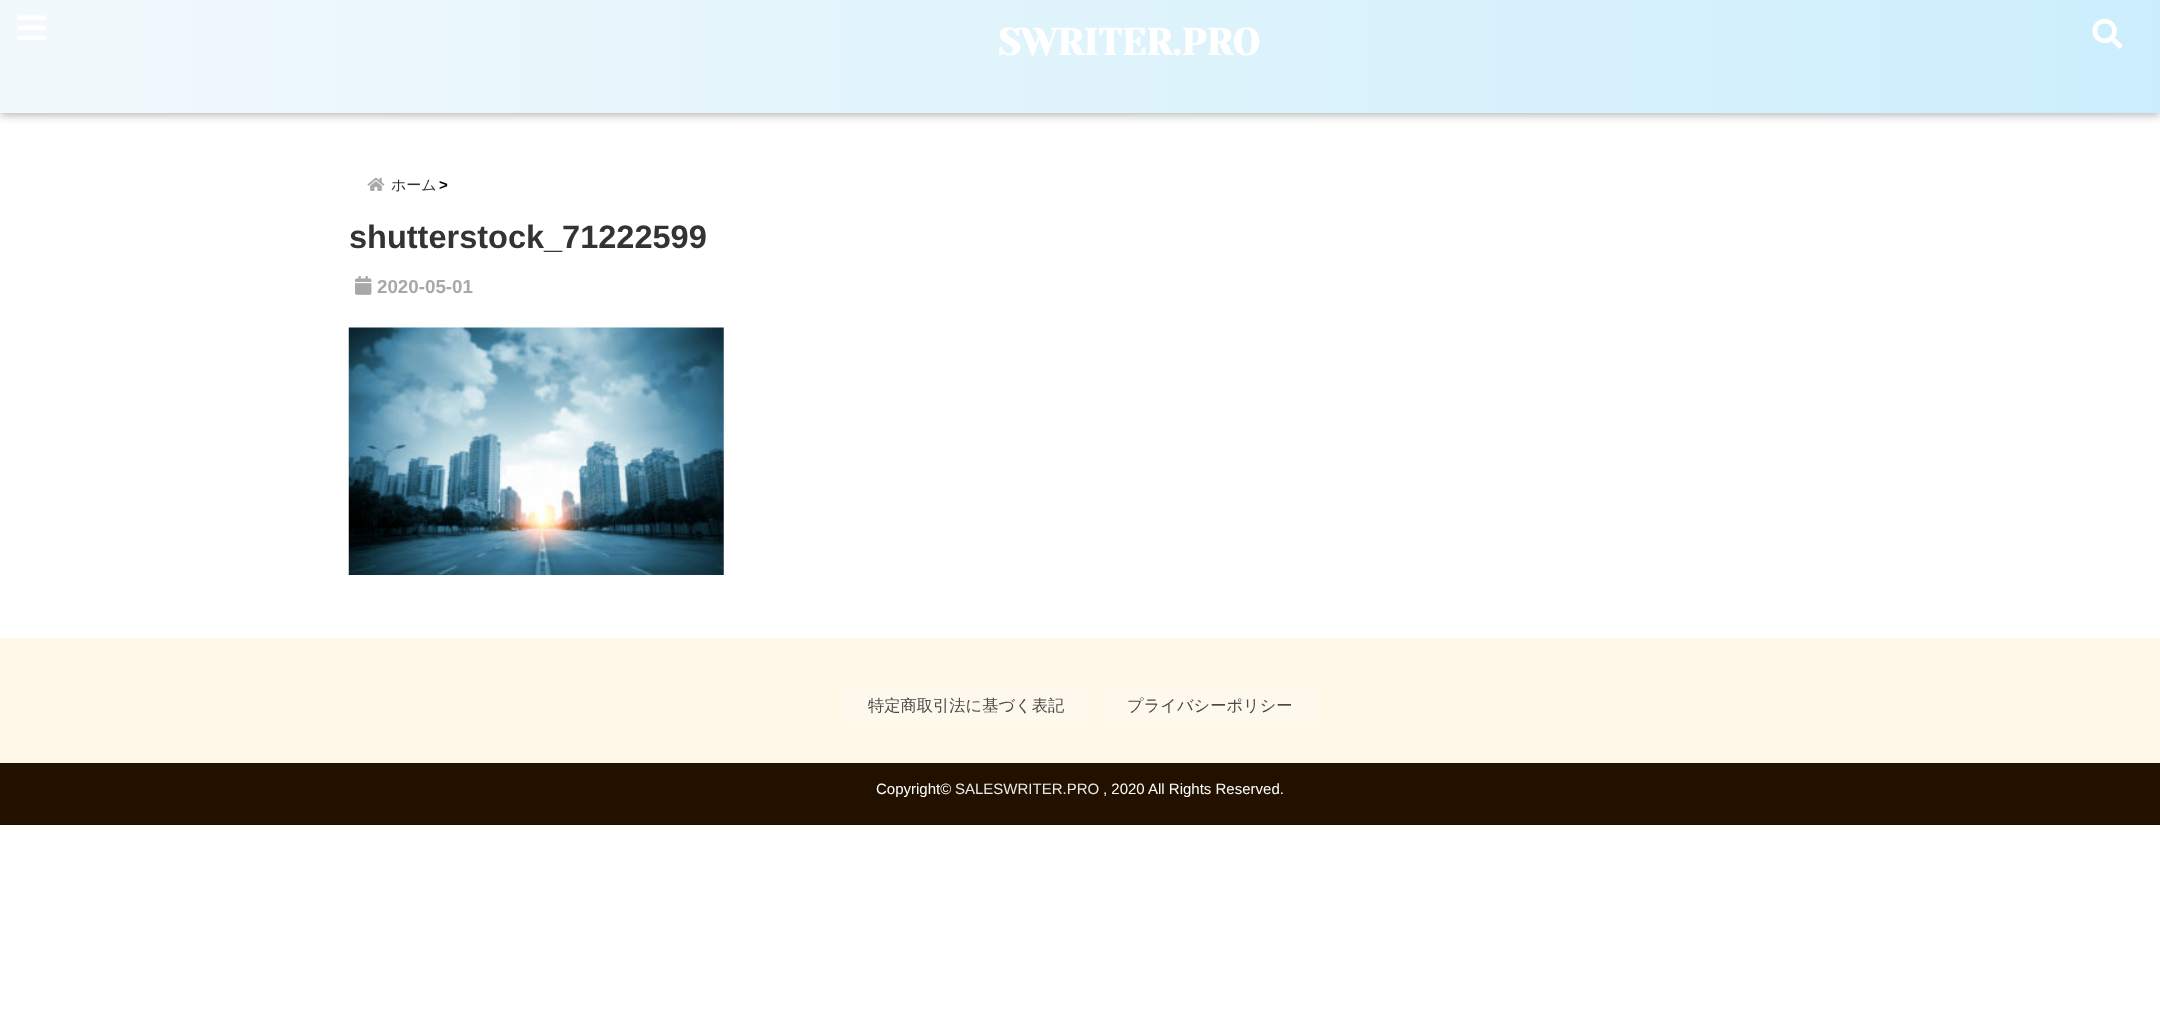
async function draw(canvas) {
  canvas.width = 2160;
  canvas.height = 1028;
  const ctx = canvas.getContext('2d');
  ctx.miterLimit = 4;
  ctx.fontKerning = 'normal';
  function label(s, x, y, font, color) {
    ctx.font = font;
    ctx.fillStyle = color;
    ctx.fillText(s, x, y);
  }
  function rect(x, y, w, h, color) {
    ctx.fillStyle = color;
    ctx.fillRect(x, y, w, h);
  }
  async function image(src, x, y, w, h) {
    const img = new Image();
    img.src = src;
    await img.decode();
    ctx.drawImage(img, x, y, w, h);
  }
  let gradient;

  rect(0, 0, 2160, 1028, '#fff');
  ctx.fillStyle = '#0000004d';
  ctx.filter = 'blur(5px)';
  ctx.beginPath();
  ctx.rect(0, 3, 2160, 112);
  ctx.fill();
  ctx.filter = 'none';
  gradient = ctx.createLinearGradient(0, 56, 2160, 56);
  gradient.addColorStop(0, '#f2f9fc');
  gradient.addColorStop(1, '#cceefc');
  ctx.fillStyle = gradient;
  ctx.fillRect(0, 0, 2160, 113);
  await image('assets/img1.png', 17, 15, 29, 25);
  label('SWRITER.PRO', 998, 55, 'bold 37.5px Yeseva One', '#fff');
  await image('assets/img2.png', 2092, 18, 31, 31);
  await image('assets/img3.png', 367, 177, 18, 14);
  label('ホーム', 391, 190, '500 15px WenQuanYi Zen Hei', '#333');
  label('>', 439, 190, 'bold 15px Liberation Sans', '#010101');
  label('shutterstock_71222599', 349, 248, 'bold 32.5px Liberation Sans', '#333');
  await image('assets/img4.png', 355, 276, 17, 19);
  label('2020-05-01', 377, 293, 'bold 18.75px Liberation Sans', '#a8a8a8');
  await image('assets/img5.png', 348, 327, 376, 248);
  rect(0, 638, 2160, 125, '#fff8e8');
  rect(843, 688, 246, 37, '#fff9ed');
  label('特定商取引法に基づく表記', 868, 711, '500 16.25px WenQuanYi Zen Hei', '#494949');
  rect(1101, 688, 217, 37, '#fff9ed');
  label('プライバシーポリシー', 1127, 711, '500 16.25px WenQuanYi Zen Hei', '#494949');
  rect(0, 763, 2160, 62, '#231100');
  label('Copyright©', 876, 794, '15px Liberation Sans', '#fff');
  label('SALESWRITER.PRO', 955, 794, '15px Liberation Sans', '#eaeaea');
  label(', 2020', 1103, 794, '15px Liberation Sans', '#fff');
  label('All Rights Reserved.', 1148, 794, '15px Liberation Sans', '#fff');
}

draw(document.querySelector('canvas'));
